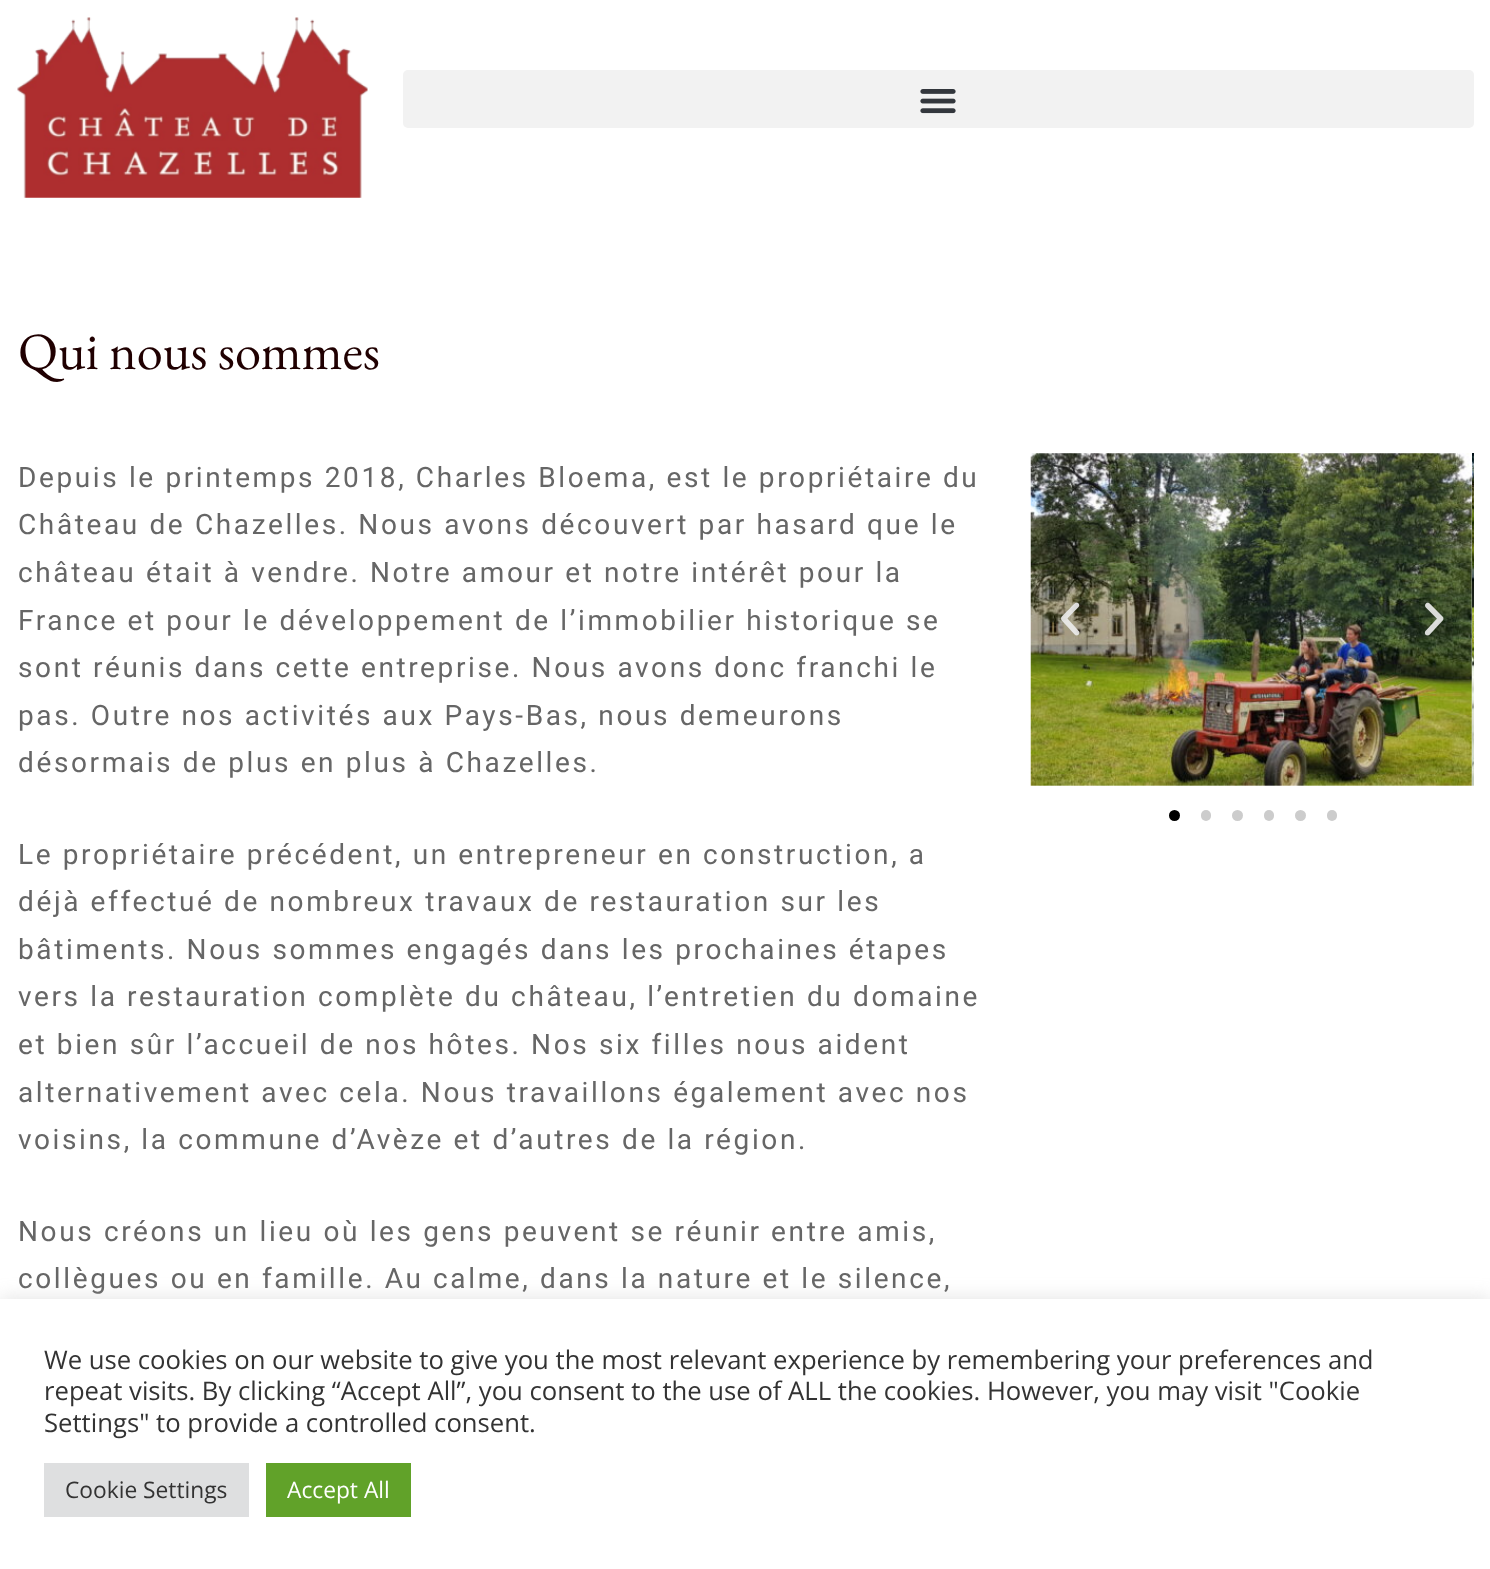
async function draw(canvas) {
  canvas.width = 1490;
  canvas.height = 1569;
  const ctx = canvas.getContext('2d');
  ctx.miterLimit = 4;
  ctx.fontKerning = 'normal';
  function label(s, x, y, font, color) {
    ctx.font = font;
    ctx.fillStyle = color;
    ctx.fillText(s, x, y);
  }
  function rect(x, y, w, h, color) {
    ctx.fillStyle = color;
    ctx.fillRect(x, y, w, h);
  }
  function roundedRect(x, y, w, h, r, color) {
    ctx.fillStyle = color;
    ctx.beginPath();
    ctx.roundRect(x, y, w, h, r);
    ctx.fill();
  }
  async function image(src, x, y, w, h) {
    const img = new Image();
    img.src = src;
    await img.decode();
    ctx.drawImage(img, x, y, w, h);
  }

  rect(0, 0, 1490, 1569, '#fff');
  await image('assets/img1.png', 17, 17, 351, 181);
  roundedRect(403, 70, 1071, 58, 5, '#f2f2f2');
  await image('assets/img2.png', 920, 89, 36, 25);
  label('Qui nous sommes', 18, 369, '52.5px EB Garamond', '#200001');
  ctx.letterSpacing = '2.62px';
  label('Depuis le printemps 2018, Charles Bloema, est le propriétaire du', 18, 487, '28px Roboto', '#666');
  label('Château de Chazelles. Nous avons découvert par hasard que le', 18, 534, '28px Roboto', '#666');
  label('château était à vendre. Notre amour et notre intérêt pour la', 18, 582, '28px Roboto', '#666');
  label('France et pour le développement de l’immobilier historique se', 18, 630, '28px Roboto', '#666');
  label('sont réunis dans cette entreprise. Nous avons donc franchi le', 18, 677, '28px Roboto', '#666');
  label('pas. Outre nos activités aux Pays-Bas, nous demeurons', 18, 725, '28px Roboto', '#666');
  label('désormais de plus en plus à Chazelles.', 18, 772, '28px Roboto', '#666');
  label('Le propriétaire précédent, un entrepreneur en construction, a', 18, 864, '28px Roboto', '#666');
  label('déjà effectué de nombreux travaux de restauration sur les', 18, 911, '28px Roboto', '#666');
  label('bâtiments. Nous sommes engagés dans les prochaines étapes', 18, 959, '28px Roboto', '#666');
  label('vers la restauration complète du château, l’entretien du domaine', 18, 1006, '28px Roboto', '#666');
  label('et bien sûr l’accueil de nos hôtes. Nos six filles nous aident', 18, 1054, '28px Roboto', '#666');
  label('alternativement avec cela. Nous travaillons également avec nos', 18, 1102, '28px Roboto', '#666');
  label('voisins, la commune d’Avèze et d’autres de la région.', 18, 1149, '28px Roboto', '#666');
  label('Nous créons un lieu où les gens peuvent se réunir entre amis,', 18, 1241, '28px Roboto', '#666');
  label('collègues ou en famille. Au calme, dans la nature et le silence,', 18, 1288, '28px Roboto', '#666');
  await image('assets/img3.png', 1030, 453, 442, 333);
  await image('assets/img4.png', 1472, 453, 2, 333);
  await image('assets/img5.png', 1061, 602, 19, 34);
  await image('assets/img6.png', 1424, 602, 20, 34);
  ctx.fillStyle = '#000';
  ctx.beginPath();
  ctx.arc(1174.5, 815.5, 5.5, 0, 2 * Math.PI);
  ctx.fill();
  roundedRect(1201, 810, 10, 11, 5, '#ccc');
  ctx.beginPath();
  ctx.arc(1237.5, 815.5, 5.5, 0, 2 * Math.PI);
  ctx.fill();
  roundedRect(1264, 810, 10, 11, 5, '#ccc');
  ctx.beginPath();
  ctx.arc(1300.5, 815.5, 5.5, 0, 2 * Math.PI);
  ctx.fill();
  roundedRect(1327, 810, 10, 11, 5, '#ccc');
  ctx.fillStyle = '#acabab4d';
  ctx.filter = 'blur(9px)';
  ctx.beginPath();
  ctx.rect(0, 1297, 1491, 271);
  ctx.fill();
  ctx.filter = 'none';
  rect(0, 1299, 1490, 270, '#fff');
  ctx.letterSpacing = '0px';
  label('We use cookies on our website to give you the most relevant experience by remembering your preferences and', 44, 1369, '25.67px Open Sans', '#333');
  label('repeat visits. By clicking “Accept All”, you consent to the use of ALL the cookies. However, you may visit "Cookie', 44, 1400, '25.67px Open Sans', '#333');
  label('Settings" to provide a controlled consent.', 44, 1432, '25.67px Open Sans', '#333');
  rect(44, 1463, 205, 54, '#dedfe0');
  label('Cookie Settings', 65, 1498, '22.75px Open Sans', '#333');
  rect(266, 1463, 145, 54, '#61a229');
  label('Accept All', 287, 1498, '22.75px Open Sans', '#fff');
}

draw(document.querySelector('canvas'));
